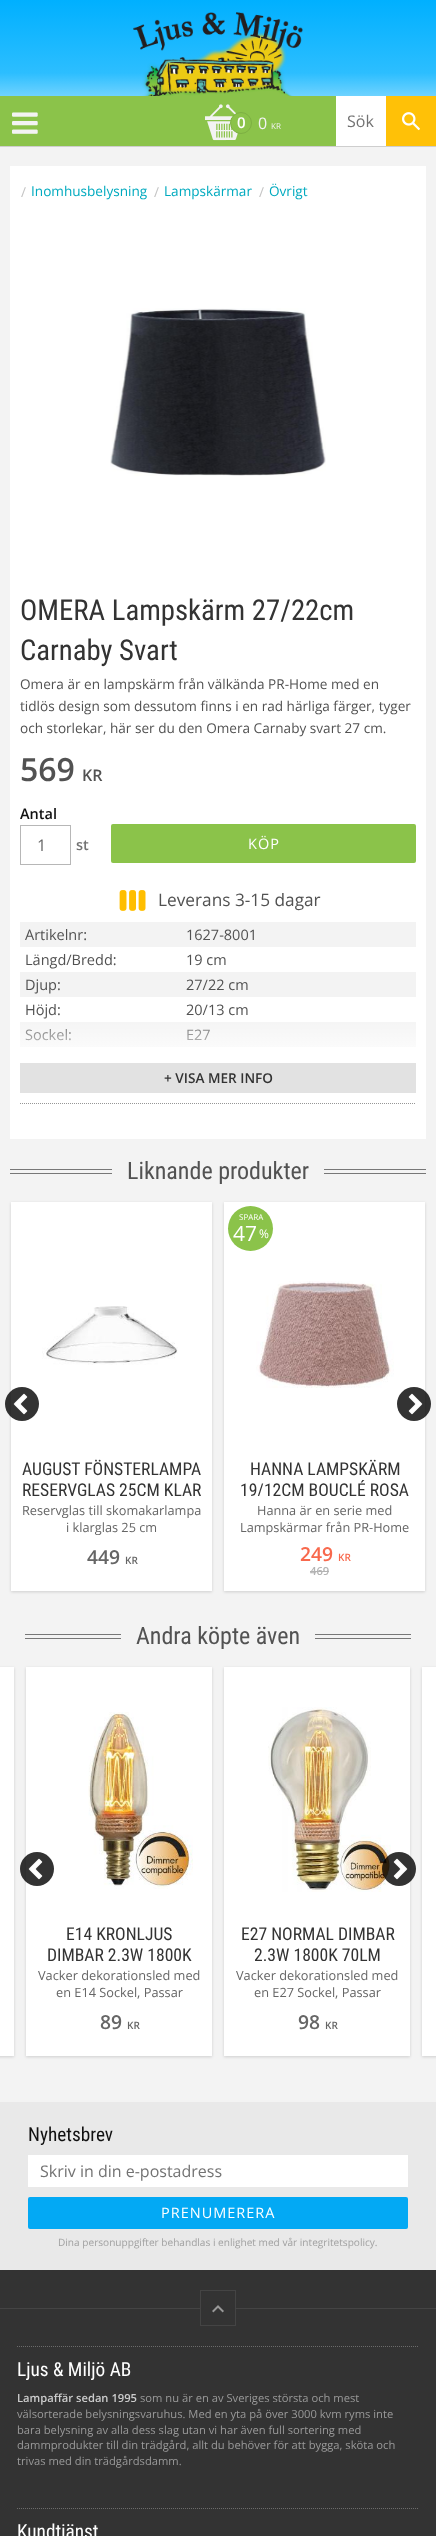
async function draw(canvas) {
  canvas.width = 436;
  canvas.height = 2536;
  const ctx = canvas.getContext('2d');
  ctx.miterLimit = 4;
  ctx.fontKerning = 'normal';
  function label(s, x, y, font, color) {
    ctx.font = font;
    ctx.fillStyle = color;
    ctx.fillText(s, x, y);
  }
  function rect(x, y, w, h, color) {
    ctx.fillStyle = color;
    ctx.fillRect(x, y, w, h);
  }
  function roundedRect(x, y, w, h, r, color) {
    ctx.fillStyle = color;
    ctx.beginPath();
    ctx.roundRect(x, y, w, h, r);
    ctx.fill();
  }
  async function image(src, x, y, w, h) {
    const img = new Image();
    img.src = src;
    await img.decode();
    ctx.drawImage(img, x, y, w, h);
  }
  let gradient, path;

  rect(0, 0, 436, 2536, '#f3f3f3');
  ctx.fillStyle = '#00000026';
  ctx.filter = 'blur(0.5px)';
  ctx.beginPath();
  ctx.rect(0, 1, 436, 146);
  ctx.fill();
  ctx.filter = 'none';
  gradient = ctx.createLinearGradient(218, 0, 218, 146);
  gradient.addColorStop(0, '#00b0ff');
  gradient.addColorStop(0.5, '#2cbeff');
  gradient.addColorStop(1, '#fff');
  ctx.fillStyle = gradient;
  ctx.fillRect(0, 0, 436, 96);
  rect(0, 96, 336, 50, '#8bc34a');
  await image('assets/img1.png', 12, 112, 26, 22);
  await image('assets/img2.png', 133, 12, 170, 84);
  await image('assets/img3.png', 205, 104, 33, 37);
  ctx.beginPath();
  ctx.arc(241, 123, 10.5, 0, 2 * Math.PI);
  ctx.fill();
  ctx.strokeStyle = '#7db043';
  ctx.stroke();
  label('0', 237, 128, '600 15px Open Sans', '#fff');
  label('0', 258, 129, '16px Open Sans', '#f3f3f3');
  label('KR', 271, 129, '8px Open Sans', '#f3f3f3');
  rect(336, 96, 50, 50, '#fff');
  label('Sök', 347, 127, '16px Open Sans', '#737373');
  rect(386, 96, 50, 50, '#ffc107');
  await image('assets/img4.png', 402, 112, 18, 19);
  rect(10, 166, 416, 973, '#fff');
  label('/', 21, 197, '13.6px Open Sans', '#c3c3c3');
  label('Inomhusbelysning', 31, 196, '13.6px Open Sans', '#00aabf');
  label('/', 154, 197, '13.6px Open Sans', '#c3c3c3');
  label('Lampskärmar', 164, 196, '13.6px Open Sans', '#00aabf');
  label('/', 259, 197, '13.6px Open Sans', '#c3c3c3');
  label('Övrigt', 269, 196, '13.6px Open Sans', '#00aabf');
  await image('assets/img5.png', 110, 308, 216, 168);
  label('OMERA Lampskärm 27/22cm', 20, 620, '28.75px Roboto Condensed', '#333');
  label('Carnaby Svart', 20, 660, '28.75px Roboto Condensed', '#333');
  label('Omera är en lampskärm från välkända PR-Home med en', 20, 689, '13.6px Open Sans', '#525252');
  label('tidlös design som dessutom finns i en rad härliga färger, tyger', 20, 711, '13.6px Open Sans', '#525252');
  label('och storlekar, här ser du den Omera Carnaby svart 27 cm.', 20, 733, '13.6px Open Sans', '#525252');
  label('569', 20, 781, '600 32px Open Sans', '#525252');
  label('KR', 82, 781, '600 16px Open Sans', '#525252');
  label('Antal', 20, 819, '600 14.5px Open Sans', '#111');
  ctx.strokeStyle = '#b7b7b7';
  ctx.strokeRect(20.5, 825.5, 50, 39);
  label('1', 37, 851, '16px Open Sans', '#666');
  label('st', 76, 850, '600 14.5px Open Sans', '#737373');
  roundedRect(111, 824, 305, 39, 2, '#8bc34a');
  ctx.letterSpacing = '1px';
  label('KÖP', 248, 849, '14.5px Open Sans', '#fff');
  await image('assets/img6.png', 119, 890, 27, 21);
  ctx.letterSpacing = '0px';
  label('Leverans 3-15 dagar', 158, 906, '17.25px Open Sans', '#525252');
  rect(20, 922, 396, 25, '#f3f3f3');
  label('Artikelnr:', 25, 940, '14.5px Open Sans', '#525252');
  label('1627-8001', 186, 940, '14.5px Open Sans', '#525252');
  label('Längd/Bredd:', 25, 965, '14.5px Open Sans', '#525252');
  label('19 cm', 186, 965, '14.5px Open Sans', '#525252');
  rect(20, 972, 396, 25, '#f3f3f3');
  label('Djup:', 25, 990, '14.5px Open Sans', '#525252');
  label('27/22 cm', 186, 990, '14.5px Open Sans', '#525252');
  label('Höjd:', 25, 1015, '14.5px Open Sans', '#525252');
  label('20/13 cm', 186, 1015, '14.5px Open Sans', '#525252');
  rect(20, 1022, 396, 25, '#f3f3f3');
  label('Sockel:', 25, 1040, '14.5px Open Sans', '#525252');
  label('E27', 186, 1040, '14.5px Open Sans', '#525252');
  gradient = ctx.createLinearGradient(218, 1014, 218, 1064);
  gradient.addColorStop(0, '#ffffff00');
  gradient.addColorStop(1, '#fff');
  ctx.fillStyle = gradient;
  ctx.fillRect(20, 1015, 396, 32);
  rect(20, 1063, 396, 30, '#e2e2e2');
  label('+ VISA MER INFO', 164, 1083, '600 13.6px Open Sans', '#333');
  path = new Path2D('M20 1103.5H416');
  ctx.strokeStyle = '#969696';
  ctx.setLineDash([1, 1]);
  ctx.stroke(path);
  rect(10, 1169, 102, 1, '#777');
  rect(10, 1173, 102, 1, '#777');
  label('Liknande produkter', 127, 1179, '24px Roboto Condensed', '#525252');
  rect(324, 1169, 102, 1, '#777');
  rect(324, 1173, 102, 1, '#777');
  ctx.fillStyle = '#00000026';
  ctx.filter = 'blur(1.5px)';
  ctx.beginPath();
  ctx.rect(11, 1203, 201, 389);
  ctx.fill();
  ctx.filter = 'none';
  rect(11, 1202, 201, 389, '#fff');
  await image('assets/img7.png', 42, 1306, 136, 59);
  label('AUGUST FÖNSTERLAMPA', 22, 1475, '17.6px Roboto Condensed', '#333');
  ctx.save();
  ctx.beginPath();
  ctx.rect(21, 1456, 181, 40);
  ctx.clip();
  label('RESERVGLAS 25CM KLAR', 22, 1496, '17.6px Roboto Condensed', '#333');
  ctx.restore();
  label('Reservglas till skomakarlampa', 22, 1515, '12.75px Open Sans', '#666');
  label('i klarglas 25 cm', 66, 1532, '12.75px Open Sans', '#666');
  label('449', 87, 1564, '600 19.25px Open Sans', '#666');
  label('KR', 125, 1564, '600 10px Open Sans', '#666');
  ctx.fillStyle = '#00000026';
  ctx.filter = 'blur(1.5px)';
  ctx.beginPath();
  ctx.rect(224, 1203, 201, 389);
  ctx.fill();
  ctx.filter = 'none';
  rect(224, 1202, 201, 389, '#fff');
  ctx.fillStyle = '#8bc34a';
  ctx.beginPath();
  ctx.arc(250.5, 1228.5, 22.5, 0, 2 * Math.PI);
  ctx.fill();
  label('SPARA', 239, 1220, '8px Open Sans', '#fff');
  label('47', 233, 1241, '21px Open Sans', '#fff');
  label('%', 259, 1238, '12px Open Sans', '#fff');
  await image('assets/img8.png', 256, 1281, 138, 107);
  label('HANNA LAMPSKÄRM', 250, 1475, '17.6px Roboto Condensed', '#333');
  ctx.save();
  ctx.beginPath();
  ctx.rect(234, 1456, 181, 40);
  ctx.clip();
  label('19/12CM BOUCLÉ ROSA', 240, 1496, '17.6px Roboto Condensed', '#333');
  ctx.restore();
  label('Hanna är en serie med', 257, 1515, '12.75px Open Sans', '#666');
  label('Lampskärmar från PR-Home', 240, 1532, '12.75px Open Sans', '#666');
  label('249', 300, 1561, '600 19.25px Open Sans', '#f8694d');
  label('KR', 338, 1561, '600 10px Open Sans', '#f8694d');
  label('469', 310, 1575, '600 11.2px Open Sans', '#b3b3b3');
  rect(310, 1571, 19, 1, '#b3b3b3');
  ctx.fillStyle = '#000000cc';
  ctx.beginPath();
  ctx.arc(22, 1404, 17, 0, 2 * Math.PI);
  ctx.fill();
  await image('assets/img9.png', 13, 1393, 15, 22);
  ctx.beginPath();
  ctx.arc(414, 1404, 17, 0, 2 * Math.PI);
  ctx.fill();
  await image('assets/img10.png', 408, 1393, 15, 22);
  rect(25, 1634, 96, 1, '#777');
  rect(25, 1638, 96, 1, '#777');
  label('Andra köpte även', 136, 1644, '24px Roboto Condensed', '#525252');
  rect(315, 1634, 96, 1, '#777');
  rect(315, 1638, 96, 1, '#777');
  ctx.fillStyle = '#00000026';
  ctx.filter = 'blur(1.5px)';
  ctx.beginPath();
  ctx.rect(26, 1668, 186, 389);
  ctx.fill();
  ctx.filter = 'none';
  rect(26, 1667, 186, 389, '#fff');
  ctx.fillStyle = '#000000cc';
  ctx.beginPath();
  ctx.arc(37, 1869, 17, 0, 2 * Math.PI);
  ctx.fill();
  await image('assets/img9.png', 28, 1858, 15, 22);
  ctx.fillStyle = '#00000026';
  ctx.filter = 'blur(1.5px)';
  ctx.beginPath();
  ctx.rect(224, 1668, 186, 389);
  ctx.fill();
  ctx.filter = 'none';
  rect(224, 1667, 186, 389, '#fff');
  await image('assets/img12.png', 268, 1707, 123, 185);
  ctx.fillStyle = '#000000cc';
  ctx.beginPath();
  ctx.arc(399, 1869, 17, 0, 2 * Math.PI);
  ctx.fill();
  await image('assets/img10.png', 393, 1858, 15, 22);
  ctx.fillStyle = '#00000026';
  ctx.filter = 'blur(1.5px)';
  ctx.beginPath();
  ctx.rect(-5, 1668, 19, 389);
  ctx.fill();
  ctx.filter = 'none';
  rect(0, 1667, 14, 389, '#fff');
  await image('assets/img11.png', 88, 1712, 105, 177);
  label('E14 KRONLJUS', 66, 1940, '17.6px Roboto Condensed', '#333');
  ctx.save();
  ctx.beginPath();
  ctx.rect(36, 1921, 166, 40);
  ctx.clip();
  label('DIMBAR 2.3W 1800K', 47, 1961, '17.6px Roboto Condensed', '#333');
  ctx.restore();
  label('Vacker dekorationsled med', 38, 1980, '12.75px Open Sans', '#666');
  label('en E14 Sockel, Passar', 56, 1997, '12.75px Open Sans', '#666');
  label('89', 100, 2029, '600 19.25px Open Sans', '#666');
  label('KR', 127, 2029, '600 10px Open Sans', '#666');
  label('E27 NORMAL DIMBAR', 241, 1940, '17.6px Roboto Condensed', '#333');
  ctx.save();
  ctx.beginPath();
  ctx.rect(234, 1921, 166, 40);
  ctx.clip();
  label('2.3W 1800K 70LM', 254, 1961, '17.6px Roboto Condensed', '#333');
  ctx.restore();
  label('Vacker dekorationsled med', 236, 1980, '12.75px Open Sans', '#666');
  label('en E27 Sockel, Passar', 254, 1997, '12.75px Open Sans', '#666');
  label('98', 298, 2029, '600 19.25px Open Sans', '#666');
  label('KR', 325, 2029, '600 10px Open Sans', '#666');
  ctx.fillStyle = '#00000026';
  ctx.filter = 'blur(1.5px)';
  ctx.beginPath();
  ctx.rect(422, 1668, 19, 389);
  ctx.fill();
  ctx.filter = 'none';
  rect(422, 1667, 14, 389, '#fff');
  rect(0, 2270, 436, 266, '#333');
  rect(0, 2102, 436, 168, '#e9e9e9');
  label('Nyhetsbrev', 28, 2141, '19.25px Roboto Condensed', '#111');
  rect(28, 2155, 380, 32, '#fff');
  label('Skriv in din e-postadress', 40, 2177, '16px Open Sans', '#737373');
  roundedRect(28, 2197, 380, 32, 2, '#03a9f4');
  ctx.letterSpacing = '1px';
  label('PRENUMERERA', 161, 2218, '14.5px Open Sans', '#fff');
  ctx.letterSpacing = '0px';
  label('Dina personuppgifter behandlas i enlighet med vår integritetspolicy.', 58, 2246, '10.1px Open Sans', '#a1a1a1');
  rect(0, 2308, 436, 1, '#444');
  rect(201, 2308, 34, 1, '#333');
  ctx.strokeStyle = '#444';
  ctx.setLineDash([]);
  ctx.strokeRect(200.5, 2290.5, 35, 35);
  await image('assets/img13.png', 212, 2305, 12, 8);
  path = new Path2D('M17 2346.5H419');
  ctx.strokeStyle = '#6b6b6b';
  ctx.setLineDash([1, 1]);
  ctx.stroke(path);
  label('Ljus & Miljö AB', 17, 2376, '19.25px Roboto Condensed', '#fff');
  label('Lampaffär sedan 1995', 17, 2402, '600 11.2px Open Sans', '#ccc');
  label('som nu är en av Sveriges största och mest', 140, 2402, '11.2px Open Sans', '#999');
  label('välsorterade belysningsvaruhus. Med en yta på över 3000 kvm ryms inte', 17, 2418, '11.2px Open Sans', '#999');
  label('bara belysning av alla dess slag utan vi har även full sortering med', 17, 2434, '11.2px Open Sans', '#999');
  label('dammprodukter till din trädgård, allt du behöver för att bygga, sköta och', 17, 2449, '11.2px Open Sans', '#999');
  label('trivas med din trädgårdsdamm.', 17, 2465, '11.2px Open Sans', '#999');
  path = new Path2D('M17 2508.5H419');
  ctx.stroke(path);
  label('Kundtjänst', 17, 2538, '19.25px Roboto Condensed', '#fff');
}

draw(document.querySelector('canvas'));
